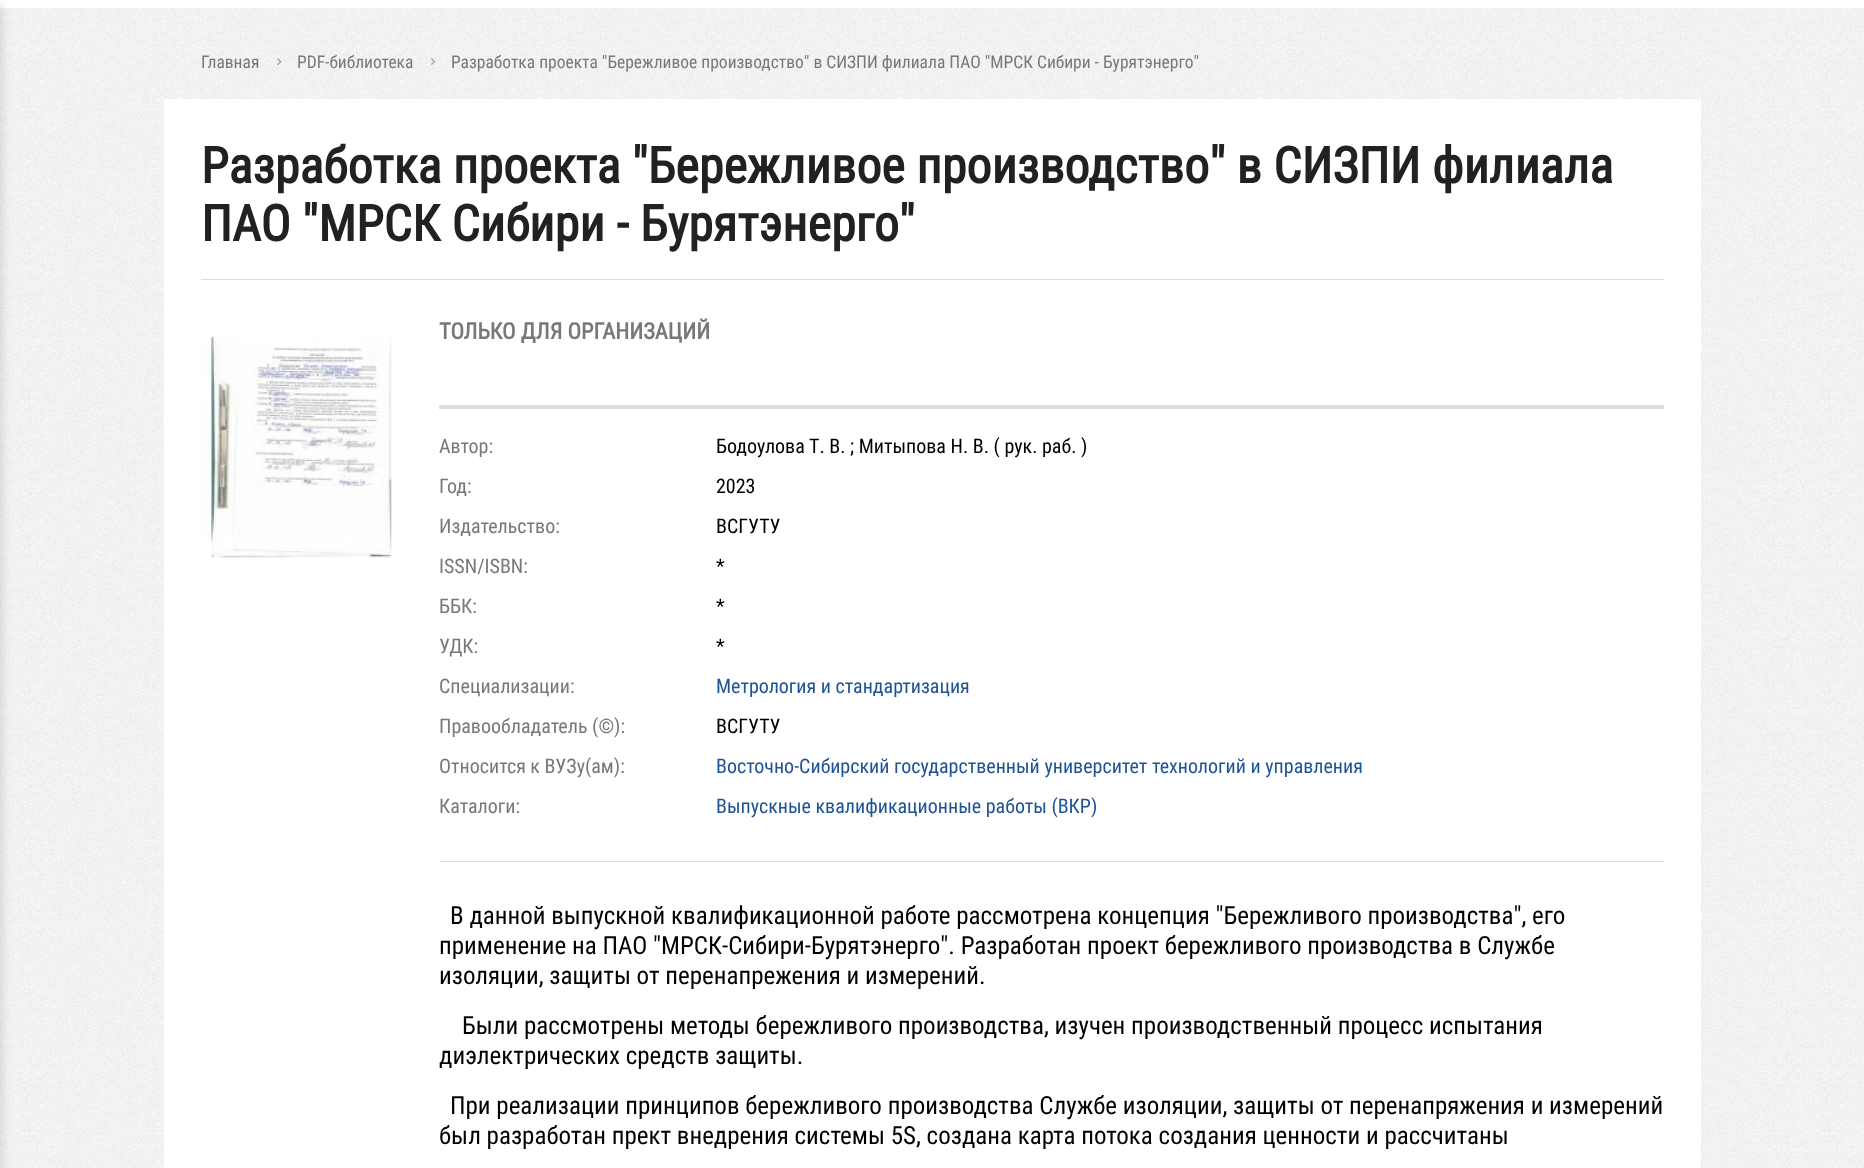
async function draw(canvas) {
  canvas.width = 1864;
  canvas.height = 1168;
  const ctx = canvas.getContext('2d');
  ctx.miterLimit = 4;
  ctx.fontKerning = 'normal';
  function label(s, x, y, font, color) {
    ctx.font = font;
    ctx.fillStyle = color;
    ctx.fillText(s, x, y);
  }
  function rect(x, y, w, h, color) {
    ctx.fillStyle = color;
    ctx.fillRect(x, y, w, h);
  }
  async function image(src, x, y, w, h) {
    const img = new Image();
    img.src = src;
    await img.decode();
    ctx.drawImage(img, x, y, w, h);
  }

  rect(0, 0, 1864, 1168, '#fff');
  await image('assets/img1.png', 0, 8, 1864, 1160);
  ctx.fillStyle = '#545f794d';
  ctx.filter = 'blur(6px)';
  ctx.beginPath();
  ctx.rect(-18, 4, 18, 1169);
  ctx.fill();
  ctx.filter = 'none';
  label('Главная', 201, 68, '17.5px Roboto Condensed', '#787878');
  await image('assets/img2.png', 277, 58, 5, 7);
  label('PDF-библиотека', 297, 68, '17.5px Roboto Condensed', '#787878');
  await image('assets/img3.png', 431, 58, 5, 7);
  label('Разработка проекта "Бережливое производство" в СИЗПИ филиала ПАО "МРСК Сибири - Бурятэнерго"', 451, 68, '17.5px Roboto Condensed', '#787878');
  rect(164, 99, 1537, 1069, '#fff');
  rect(201, 279, 1463, 1, '#dedede');
  label('Разработка проекта "Бережливое производство" в СИЗПИ филиала', 201, 183, 'bold 50px Roboto Condensed', '#212121');
  label('ПАО "МРСК Сибири - Бурятэнерго"', 201, 241, 'bold 50px Roboto Condensed', '#212121');
  await image('assets/img4.png', 202, 335, 190, 223);
  rect(439, 405, 1225, 4, '#dedede');
  label('ТОЛЬКО ДЛЯ ОРГАНИЗАЦИЙ', 439, 339, 'bold 22.5px Roboto Condensed', '#787878');
  label('Автор:', 439, 453, '20px Roboto Condensed', '#787878');
  label('Бодоулова Т. В. ; Митыпова Н. В. ( рук. раб. )', 716, 453, '20px Roboto Condensed', '#000');
  label('Год:', 439, 493, '20px Roboto Condensed', '#787878');
  label('2023', 716, 493, '20px Roboto Condensed', '#000');
  label('Издательство:', 439, 533, '20px Roboto Condensed', '#787878');
  label('ВСГУТУ', 716, 533, '20px Roboto Condensed', '#000');
  label('ISSN/ISBN:', 439, 573, '20px Roboto Condensed', '#787878');
  label('*', 716, 573, '20px Roboto Condensed', '#000');
  label('ББК:', 439, 613, '20px Roboto Condensed', '#787878');
  label('*', 716, 613, '20px Roboto Condensed', '#000');
  label('УДК:', 439, 653, '20px Roboto Condensed', '#787878');
  label('*', 716, 653, '20px Roboto Condensed', '#000');
  label('Специализации:', 439, 693, '20px Roboto Condensed', '#787878');
  label('Метрология и стандартизация', 716, 693, '20px Roboto Condensed', '#205395');
  label('Правообладатель (©):', 439, 733, '20px Roboto Condensed', '#787878');
  label('ВСГУТУ', 716, 733, '20px Roboto Condensed', '#000');
  label('Относится к ВУЗу(ам):', 439, 773, '20px Roboto Condensed', '#787878');
  label('Восточно-Сибирский государственный университет технологий и управления', 716, 773, '20px Roboto Condensed', '#205395');
  label('Каталоги:', 439, 813, '20px Roboto Condensed', '#787878');
  label('Выпускные квалификационные работы (ВКР)', 716, 813, '20px Roboto Condensed', '#205395');
  rect(439, 861, 1225, 1, '#dedede');
  label('В данной выпускной квалификационной работе рассмотрена концепция "Бережливого производства", его', 450, 924, '25px Roboto Condensed', '#000');
  label('применение на ПАО "МРСК-Сибири-Бурятэнерго". Разработан проект бережливого производства в Службе', 439, 954, '25px Roboto Condensed', '#000');
  label('изоляции, защиты от перенапрежения и измерений.', 439, 984, '25px Roboto Condensed', '#000');
  label('Были рассмотрены методы бережливого производства, изучен производственный процесс испытания', 462, 1034, '25px Roboto Condensed', '#000');
  label('диэлектрических средств защиты.', 439, 1064, '25px Roboto Condensed', '#000');
  label('При реализации принципов бережливого производства Службе изоляции, защиты от перенапряжения и измерений', 450, 1114, '25px Roboto Condensed', '#000');
  label('был разработан прект внедрения системы 5S, создана карта потока создания ценности и рассчитаны', 439, 1144, '25px Roboto Condensed', '#000');
}

draw(document.querySelector('canvas'));
